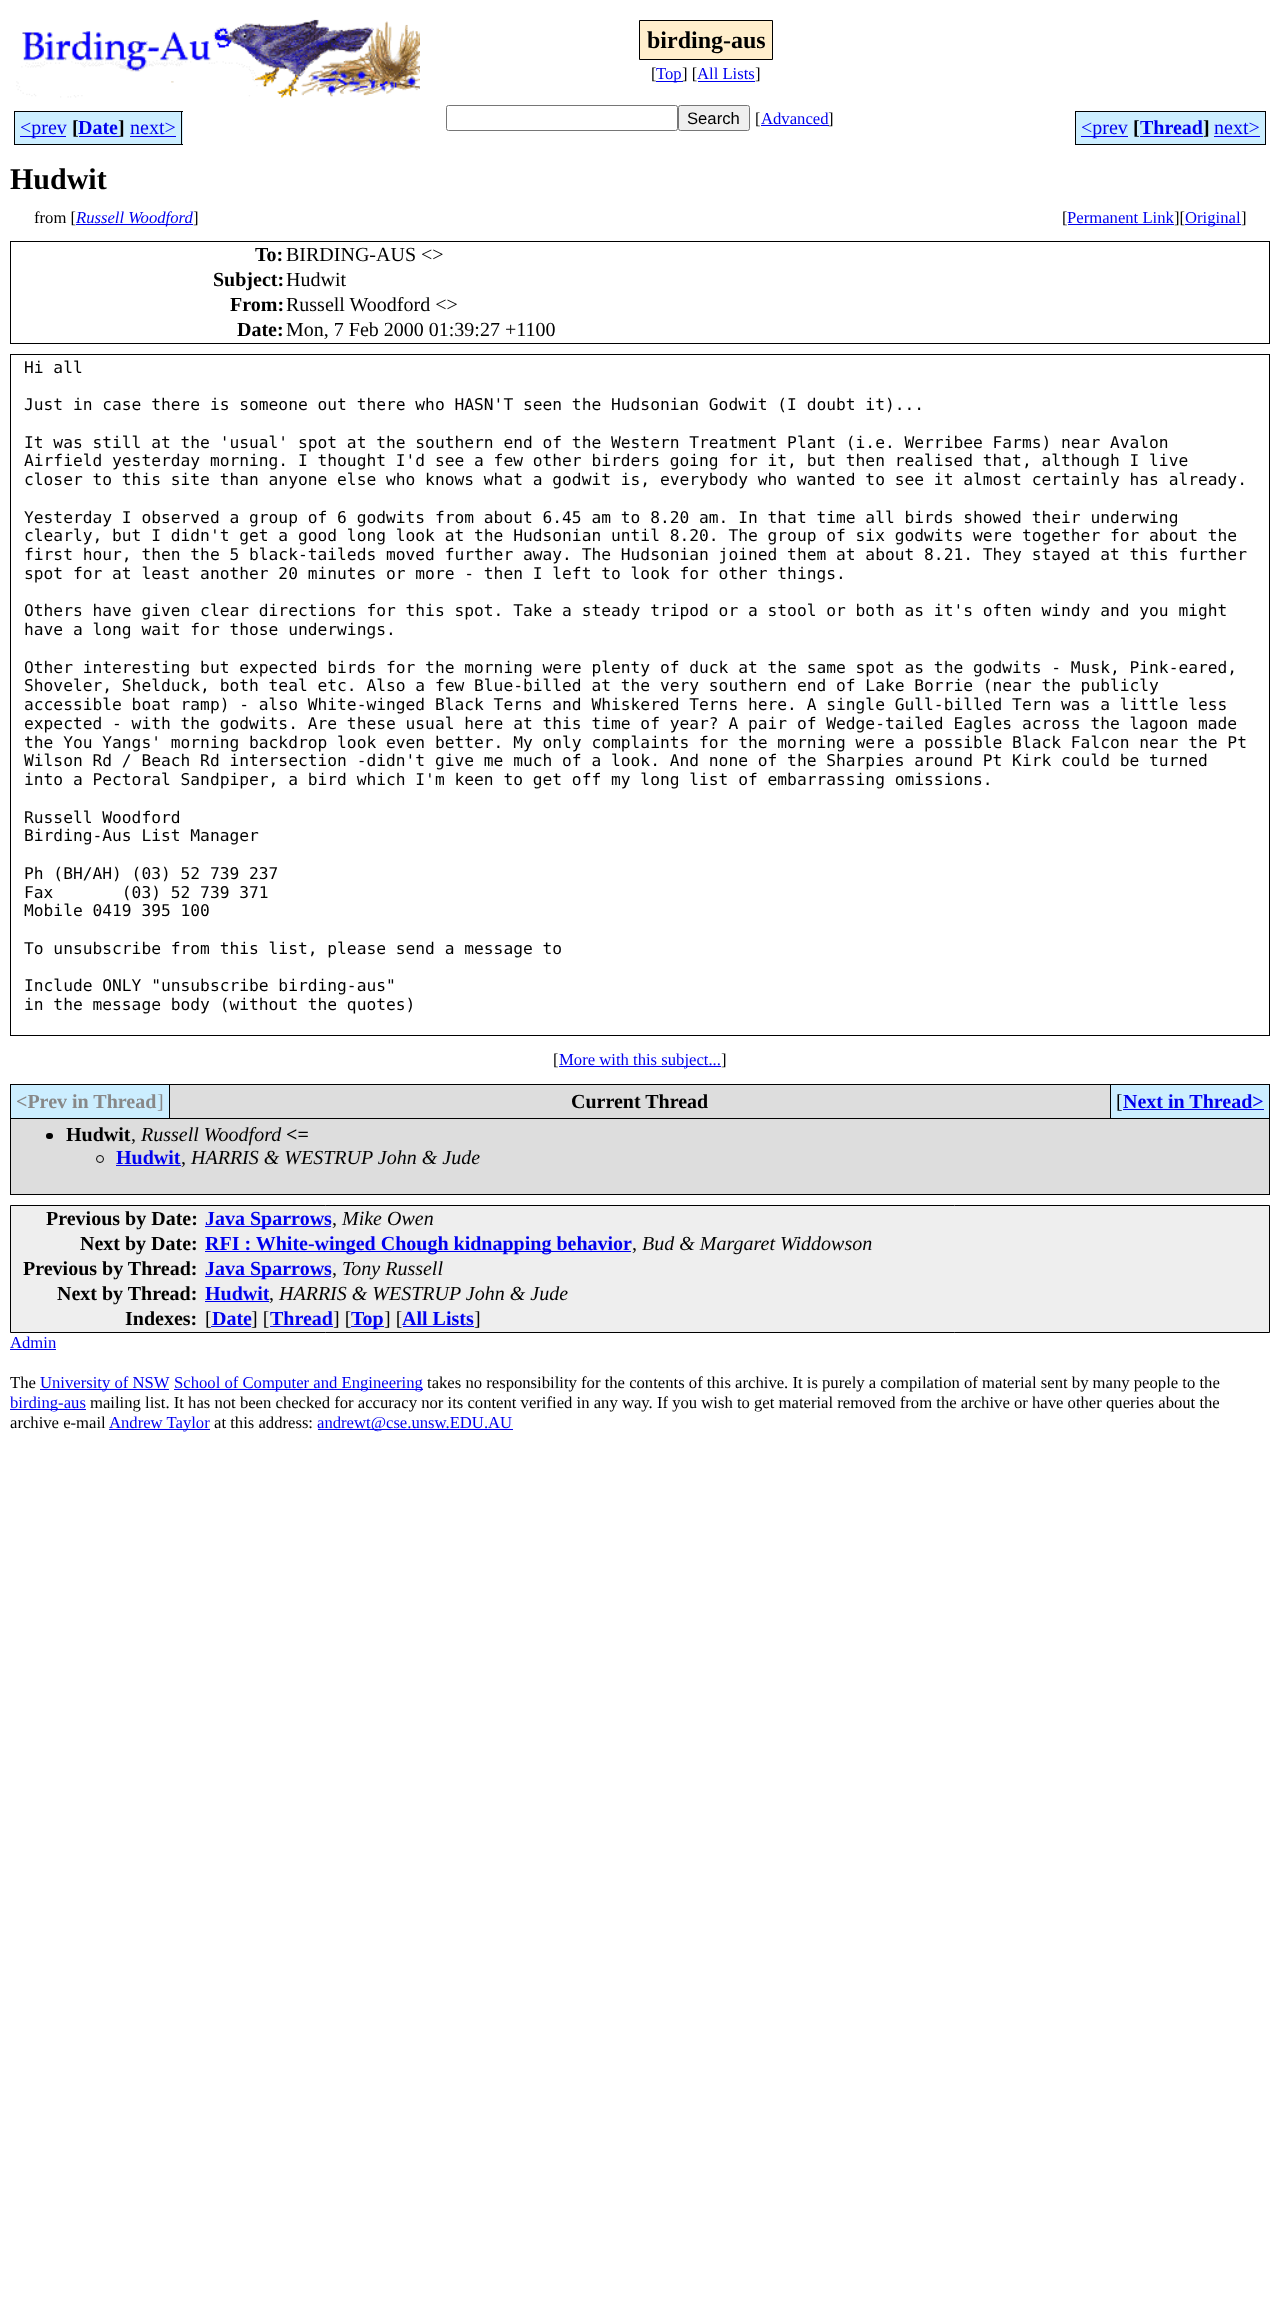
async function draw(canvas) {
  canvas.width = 1279;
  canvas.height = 2318;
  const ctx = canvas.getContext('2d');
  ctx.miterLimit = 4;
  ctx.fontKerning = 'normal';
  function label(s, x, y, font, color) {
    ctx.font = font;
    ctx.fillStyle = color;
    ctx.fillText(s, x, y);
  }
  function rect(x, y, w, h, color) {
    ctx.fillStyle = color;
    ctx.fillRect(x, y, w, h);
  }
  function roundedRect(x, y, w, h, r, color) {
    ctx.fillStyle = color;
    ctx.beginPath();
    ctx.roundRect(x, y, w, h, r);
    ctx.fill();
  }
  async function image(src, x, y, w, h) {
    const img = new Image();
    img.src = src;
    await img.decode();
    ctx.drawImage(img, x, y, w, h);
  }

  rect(0, 0, 1279, 2318, '#fff');
  await image('assets/img1.png', 16, 19, 404, 79);
  ctx.fillStyle = '#fec';
  ctx.beginPath();
  ctx.rect(639.5, 20.5, 133, 39);
  ctx.fill();
  ctx.strokeStyle = '#000';
  ctx.stroke();
  label('birding-aus', 647, 48, 'bold 24px Liberation Serif', '#000');
  label('[', 651, 79, '16.67px Liberation Serif', '#000');
  rect(656, 81, 27, 1, '#00e');
  label('Top', 656, 79, '16.67px Liberation Serif', '#00e');
  label('] [', 682, 79, '16.67px Liberation Serif', '#000');
  label('All Lists', 697, 79, '16.67px Liberation Serif', '#00e');
  label(']', 755, 79, '16.67px Liberation Serif', '#000');
  rect(698, 81, 57, 1, '#00e');
  rect(15, 112, 51, 32, '#cef');
  rect(20, 136, 46, 1, '#00e');
  rect(66, 111, 13, 34, '#cef');
  label('<prev', 20, 134, '20px Liberation Serif', '#00e');
  rect(14, 111, 52, 1, '#000');
  rect(14, 144, 52, 1, '#000');
  rect(14, 111, 1, 34, '#000');
  rect(66, 144, 53, 1, '#000');
  label('[', 72, 134, 'bold 20px Liberation Serif', '#000');
  rect(79, 112, 40, 32, '#cef');
  label('Date', 78, 134, 'bold 20px Liberation Serif', '#00e');
  rect(66, 111, 53, 1, '#000');
  rect(119, 111, 11, 34, '#cef');
  rect(119, 111, 64, 1, '#000');
  label(']', 118, 134, 'bold 20px Liberation Serif', '#000');
  rect(119, 144, 11, 1, '#000');
  rect(79, 136, 40, 1, '#00e');
  rect(130, 112, 53, 32, '#cef');
  label('next>', 130, 134, '20px Liberation Serif', '#00e');
  rect(181, 111, 1, 34, '#000');
  rect(130, 144, 53, 1, '#000');
  rect(130, 136, 46, 1, '#00e');
  ctx.beginPath();
  ctx.roundRect(446.5, 105.5, 231, 25, 2);
  ctx.strokeStyle = '#767676';
  ctx.stroke();
  ctx.fillStyle = '#efefef';
  ctx.beginPath();
  ctx.roundRect(678.5, 105.5, 71, 25, 2);
  ctx.fill();
  ctx.stroke();
  label('Search', 687, 124, '16.67px Liberation Sans', '#000');
  label('[', 755, 124, '16.67px Liberation Serif', '#000');
  rect(761, 125, 68, 1, '#00e');
  label('Advanced', 761, 124, '16.67px Liberation Serif', '#00e');
  label(']', 828, 124, '16.67px Liberation Serif', '#000');
  rect(1076, 112, 52, 32, '#cef');
  rect(1081, 136, 47, 1, '#00e');
  label('<prev', 1081, 134, '20px Liberation Serif', '#00e');
  rect(1075, 111, 53, 1, '#000');
  rect(1075, 144, 53, 1, '#000');
  rect(1075, 111, 1, 34, '#000');
  rect(1128, 111, 12, 34, '#cef');
  rect(1128, 144, 75, 1, '#000');
  label('[', 1133, 134, 'bold 20px Liberation Serif', '#000');
  rect(1140, 112, 63, 32, '#cef');
  label('Thread', 1140, 134, 'bold 20px Liberation Serif', '#00e');
  rect(1128, 111, 75, 1, '#000');
  rect(1203, 111, 11, 34, '#cef');
  rect(1203, 111, 63, 1, '#000');
  label(']', 1203, 134, 'bold 20px Liberation Serif', '#000');
  rect(1203, 144, 11, 1, '#000');
  rect(1140, 136, 63, 1, '#00e');
  rect(1214, 112, 51, 32, '#cef');
  label('next>', 1214, 134, '20px Liberation Serif', '#00e');
  rect(1265, 111, 1, 34, '#000');
  rect(1214, 144, 52, 1, '#000');
  rect(1214, 136, 46, 1, '#00e');
  label('Hudwit', 10, 189, 'bold 30px Liberation Serif', '#000');
  label('from [', 34, 223, '16.67px Liberation Serif', '#000');
  rect(76, 224, 117, 1, '#00e');
  label('Russell Woodford', 76, 223, 'italic 16.67px Liberation Serif', '#00e');
  label(']', 193, 223, '16.67px Liberation Serif', '#000');
  label('[', 1062, 223, '16.67px Liberation Serif', '#000');
  label('Permanent Link', 1067, 223, '16.67px Liberation Serif', '#00e');
  label('][', 1174, 223, '16.67px Liberation Serif', '#000');
  rect(1068, 224, 106, 1, '#00e');
  rect(1185, 224, 56, 1, '#00e');
  label('Original', 1185, 223, '16.67px Liberation Serif', '#00e');
  label(']', 1241, 223, '16.67px Liberation Serif', '#000');
  ctx.strokeStyle = '#000';
  ctx.strokeRect(10.5, 241.5, 1259, 102);
  label('To:', 255, 261, 'bold 20px Liberation Serif', '#000');
  label('BIRDING-AUS <>', 286, 261, '20px Liberation Serif', '#000');
  label('Subject:', 213, 286, 'bold 20px Liberation Serif', '#000');
  label('Hudwit', 286, 286, '20px Liberation Serif', '#000');
  label('From:', 230, 311, 'bold 20px Liberation Serif', '#000');
  label('Russell Woodford <>', 286, 311, '20px Liberation Serif', '#000');
  label('Date:', 237, 336, 'bold 20px Liberation Serif', '#000');
  label('Mon, 7 Feb 2000 01:39:27 +1100', 286, 336, '20px Liberation Serif', '#000');
  ctx.strokeRect(10.5, 354.5, 1259, 681);
  label('Hi all', 24, 373, '16.25px DejaVu Sans Mono', '#000');
  label('Just in case there is someone out there who HASN\'T seen the Hudsonian Godwit (I doubt it)...', 24, 410, '16.25px DejaVu Sans Mono', '#000');
  label('It was still at the \'usual\' spot at the southern end of the Western Treatment Plant (i.e. Werribee Farms) near Avalon', 24, 448, '16.25px DejaVu Sans Mono', '#000');
  label('Airfield yesterday morning. I thought I\'d see a few other birders going for it, but then realised that, although I live', 24, 466, '16.25px DejaVu Sans Mono', '#000');
  label('closer to this site than anyone else who knows what a godwit is, everybody who wanted to see it almost certainly has already.', 24, 485, '16.25px DejaVu Sans Mono', '#000');
  label('Yesterday I observed a group of 6 godwits from about 6.45 am to 8.20 am. In that time all birds showed their underwing', 24, 523, '16.25px DejaVu Sans Mono', '#000');
  label('clearly, but I didn\'t get a good long look at the Hudsonian until 8.20. The group of six godwits were together for about the', 24, 541, '16.25px DejaVu Sans Mono', '#000');
  label('first hour, then the 5 black-taileds moved further away. The Hudsonian joined them at about 8.21. They stayed at this further', 24, 560, '16.25px DejaVu Sans Mono', '#000');
  label('spot for at least another 20 minutes or more - then I left to look for other things.', 24, 579, '16.25px DejaVu Sans Mono', '#000');
  label('Others have given clear directions for this spot. Take a steady tripod or a stool or both as it\'s often windy and you might', 24, 616, '16.25px DejaVu Sans Mono', '#000');
  label('have a long wait for those underwings.', 24, 635, '16.25px DejaVu Sans Mono', '#000');
  label('Other interesting but expected birds for the morning were plenty of duck at the same spot as the godwits - Musk, Pink-eared,', 24, 673, '16.25px DejaVu Sans Mono', '#000');
  label('Shoveler, Shelduck, both teal etc. Also a few Blue-billed at the very southern end of Lake Borrie (near the publicly', 24, 691, '16.25px DejaVu Sans Mono', '#000');
  label('accessible boat ramp) - also White-winged Black Terns and Whiskered Terns here. A single Gull-billed Tern was a little less', 24, 710, '16.25px DejaVu Sans Mono', '#000');
  label('expected - with the godwits. Are these usual here at this time of year? A pair of Wedge-tailed Eagles across the lagoon made', 24, 729, '16.25px DejaVu Sans Mono', '#000');
  label('the You Yangs\' morning backdrop look even better. My only complaints for the morning were a possible Black Falcon near the Pt', 24, 748, '16.25px DejaVu Sans Mono', '#000');
  label('Wilson Rd / Beach Rd intersection -didn\'t give me much of a look. And none of the Sharpies around Pt Kirk could be turned', 24, 766, '16.25px DejaVu Sans Mono', '#000');
  label('into a Pectoral Sandpiper, a bird which I\'m keen to get off my long list of embarrassing omissions.', 24, 785, '16.25px DejaVu Sans Mono', '#000');
  label('Russell Woodford', 24, 823, '16.25px DejaVu Sans Mono', '#000');
  label('Birding-Aus List Manager', 24, 841, '16.25px DejaVu Sans Mono', '#000');
  label('Ph (BH/AH) (03) 52 739 237', 24, 879, '16.25px DejaVu Sans Mono', '#000');
  label('Fax       (03) 52 739 371', 24, 898, '16.25px DejaVu Sans Mono', '#000');
  label('Mobile 0419 395 100', 24, 916, '16.25px DejaVu Sans Mono', '#000');
  label('To unsubscribe from this list, please send a message to', 24, 954, '16.25px DejaVu Sans Mono', '#000');
  label('Include ONLY "unsubscribe birding-aus"', 24, 991, '16.25px DejaVu Sans Mono', '#000');
  label('in the message body (without the quotes)', 24, 1010, '16.25px DejaVu Sans Mono', '#000');
  label('[', 553, 1065, '16.67px Liberation Serif', '#000');
  rect(559, 1066, 162, 1, '#00e');
  label('More with this subject...', 559, 1065, '16.67px Liberation Serif', '#00e');
  label(']', 721, 1065, '16.67px Liberation Serif', '#000');
  rect(10, 1084, 1260, 111, '#000');
  rect(11, 1085, 158, 33, '#cef');
  label('<Prev in Thread', 16, 1108, 'bold 20px Liberation Serif', '#888');
  label(']', 157, 1108, '20px Liberation Serif', '#888');
  rect(170, 1085, 940, 33, '#ddd');
  label('Current Thread', 571, 1108, 'bold 20px Liberation Serif', '#000');
  rect(1111, 1085, 158, 33, '#cef');
  label('[', 1116, 1108, '20px Liberation Serif', '#000');
  label('Next in Thread>', 1123, 1108, 'bold 20px Liberation Serif', '#00e');
  rect(1123, 1109, 141, 1, '#00e');
  rect(11, 1119, 1258, 75, '#ddd');
  roundedRect(46, 1133, 7, 6, 3, '#000');
  label('Hudwit', 66, 1141, 'bold 20px Liberation Serif', '#000');
  label('Russell Woodford', 141, 1141, 'italic 20px Liberation Serif', '#000');
  label('<=', 286, 1141, 'bold 20px Liberation Serif', '#000');
  label(',', 131, 1141, '20px Liberation Serif', '#000');
  ctx.beginPath();
  ctx.arc(100, 1159, 3.5, 0, 2 * Math.PI);
  ctx.stroke();
  label('Hudwit', 116, 1164, 'bold 20px Liberation Serif', '#00e');
  rect(116, 1165, 65, 1, '#00e');
  label('HARRIS & WESTRUP John & Jude', 191, 1164, 'italic 20px Liberation Serif', '#000');
  label(',', 181, 1164, '20px Liberation Serif', '#000');
  ctx.fillStyle = '#eee';
  ctx.beginPath();
  ctx.rect(10.5, 1205.5, 1259, 127);
  ctx.fill();
  ctx.stroke();
  label('Previous by Date:', 46, 1225, 'bold 20px Liberation Serif', '#000');
  rect(205, 1226, 126, 1, '#00e');
  label('Java Sparrows', 205, 1225, 'bold 20px Liberation Serif', '#00e');
  label(',', 332, 1225, '20px Liberation Serif', '#000');
  label('Mike Owen', 342, 1225, 'italic 20px Liberation Serif', '#000');
  label('Next by Date:', 80, 1250, 'bold 20px Liberation Serif', '#000');
  rect(205, 1251, 426, 1, '#00e');
  label('RFI : White-winged Chough kidnapping behavior', 205, 1250, 'bold 20px Liberation Serif', '#00e');
  label(',', 632, 1250, '20px Liberation Serif', '#000');
  label('Bud & Margaret Widdowson', 642, 1250, 'italic 20px Liberation Serif', '#000');
  label('Previous by Thread:', 23, 1275, 'bold 20px Liberation Serif', '#000');
  rect(205, 1276, 126, 1, '#00e');
  label('Java Sparrows', 205, 1275, 'bold 20px Liberation Serif', '#00e');
  label(',', 332, 1275, '20px Liberation Serif', '#000');
  label('Tony Russell', 342, 1275, 'italic 20px Liberation Serif', '#000');
  label('Next by Thread:', 57, 1300, 'bold 20px Liberation Serif', '#000');
  label('Hudwit', 205, 1300, 'bold 20px Liberation Serif', '#00e');
  rect(205, 1301, 64, 1, '#00e');
  label(',', 269, 1300, '20px Liberation Serif', '#000');
  label('HARRIS & WESTRUP John & Jude', 279, 1300, 'italic 20px Liberation Serif', '#000');
  label('Indexes:', 125, 1325, 'bold 20px Liberation Serif', '#000');
  label('[', 205, 1325, '20px Liberation Serif', '#000');
  label('Date', 212, 1325, 'bold 20px Liberation Serif', '#00e');
  rect(211, 1326, 40, 1, '#00e');
  label('] [', 251, 1325, '20px Liberation Serif', '#000');
  label('Thread', 270, 1325, 'bold 20px Liberation Serif', '#00e');
  rect(270, 1326, 63, 1, '#00e');
  label('] [', 333, 1325, '20px Liberation Serif', '#000');
  rect(351, 1326, 33, 1, '#00e');
  label('Top', 351, 1325, 'bold 20px Liberation Serif', '#00e');
  label('] [', 384, 1325, '20px Liberation Serif', '#000');
  label('All Lists', 402, 1325, 'bold 20px Liberation Serif', '#00e');
  rect(403, 1326, 71, 1, '#00e');
  label(']', 474, 1325, '20px Liberation Serif', '#000');
  label('Admin', 10, 1348, '16.67px Liberation Serif', '#00e');
  rect(10, 1349, 46, 1, '#00e');
  label('The', 10, 1388, '16.67px Liberation Serif', '#000');
  rect(40, 1389, 129, 1, '#00e');
  label('University of NSW', 40, 1388, '16.67px Liberation Serif', '#00e');
  rect(174, 1389, 249, 1, '#00e');
  label('School of Computer and Engineering', 174, 1388, '16.67px Liberation Serif', '#00e');
  label('takes no responsibility for the contents of this archive. It is purely a compilation of material sent by many people to the', 427, 1388, '16.67px Liberation Serif', '#000');
  rect(10, 1409, 76, 1, '#00e');
  label('birding-aus', 10, 1408, '16.67px Liberation Serif', '#00e');
  label('mailing list. It has not been checked for accuracy nor its content verified in any way. If you wish to get material removed from the archive or have other queries about the', 90, 1408, '16.67px Liberation Serif', '#000');
  label('archive e-mail', 10, 1428, '16.67px Liberation Serif', '#000');
  rect(109, 1429, 101, 1, '#00e');
  label('Andrew Taylor', 109, 1428, '16.67px Liberation Serif', '#00e');
  label('at this address:', 214, 1428, '16.67px Liberation Serif', '#000');
  rect(318, 1429, 195, 1, '#00e');
  label('andrewt@cse.unsw.EDU.AU', 317, 1428, '16.67px Liberation Serif', '#00e');
}

draw(document.querySelector('canvas'));
